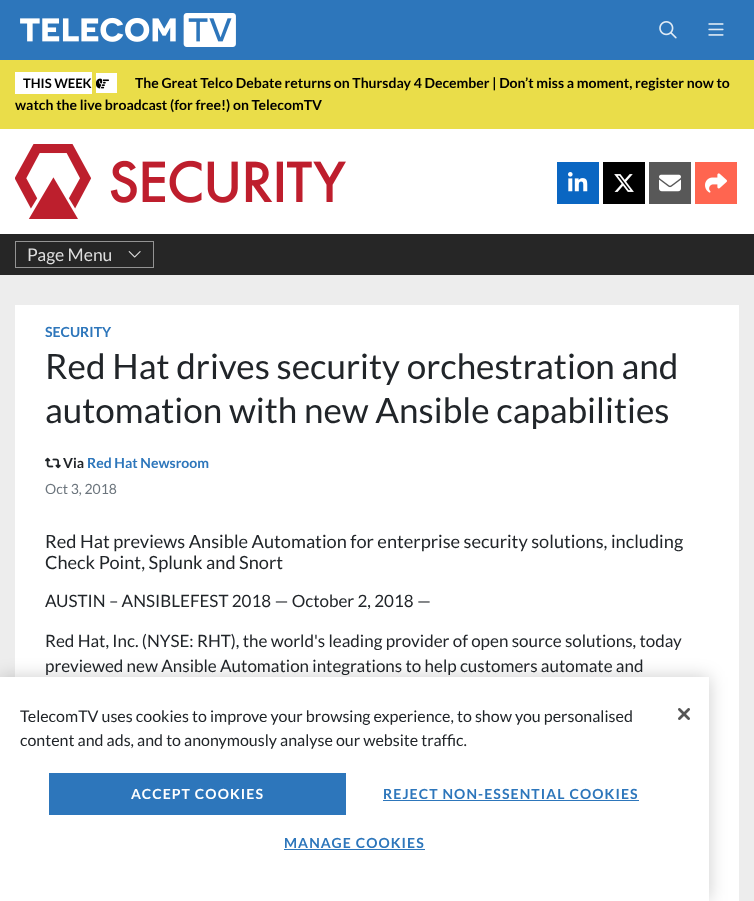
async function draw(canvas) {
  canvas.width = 754;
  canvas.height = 901;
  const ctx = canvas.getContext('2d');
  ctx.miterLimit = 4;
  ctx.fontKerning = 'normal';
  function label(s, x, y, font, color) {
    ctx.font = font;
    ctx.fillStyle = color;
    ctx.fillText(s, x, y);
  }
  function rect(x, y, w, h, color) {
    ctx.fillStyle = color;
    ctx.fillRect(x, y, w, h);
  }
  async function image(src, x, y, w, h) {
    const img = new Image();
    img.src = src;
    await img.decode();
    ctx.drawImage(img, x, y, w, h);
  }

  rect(0, 0, 754, 901, '#ededed');
  rect(0, 0, 754, 60, '#2d76bb');
  await image('assets/img1.png', 20, 13, 216, 34);
  await image('assets/img2.png', 659, 21, 18, 18);
  await image('assets/img3.png', 708, 23, 16, 13);
  rect(0, 60, 754, 69, '#eadd49');
  rect(15, 72, 77, 22, '#fff');
  rect(96, 73, 21, 20, '#fff');
  label('THIS WEEK', 23, 88, 'bold 13px Lato', '#000');
  await image('assets/img4.png', 96, 78, 13, 11);
  label('The Great Telco Debate returns on Thursday 4 December | Don’t miss a moment, register now to', 135, 88, 'bold 14px Lato', '#000');
  label('watch the live broadcast (for free!) on TelecomTV', 15, 110, 'bold 14px Lato', '#000');
  rect(0, 129, 754, 105, '#fff');
  await image('assets/img5.png', 15, 144, 331, 75);
  rect(557, 162, 42, 42, '#0a66c2');
  await image('assets/img6.png', 568, 172, 20, 20);
  rect(603, 162, 42, 42, '#000');
  await image('assets/img7.png', 614, 174, 20, 18);
  rect(649, 162, 42, 42, '#585858');
  await image('assets/img8.png', 659, 174, 22, 18);
  rect(695, 162, 42, 42, '#ff6550');
  await image('assets/img9.png', 705, 173, 22, 20);
  rect(0, 234, 754, 41, '#262626');
  ctx.strokeStyle = '#939393';
  ctx.strokeRect(15.5, 241.5, 138, 26);
  label('Page Menu', 27, 261, '17.5px Lato', '#dedede');
  await image('assets/img10.png', 128, 251, 13, 7);
  rect(15, 305, 724, 596, '#fff');
  label('SECURITY', 45, 337, 'bold 14px Lato', '#2d76bb');
  label('Red Hat drives security orchestration and', 45, 379, '35px Lato', '#212529');
  label('automation with new Ansible capabilities', 45, 423, '35px Lato', '#212529');
  await image('assets/img11.png', 45, 457, 16, 12);
  label('Via', 63, 468, 'bold 14px Lato', '#212529');
  label('Red Hat Newsroom', 87, 468, 'bold 14px Lato', '#2d76bb');
  label('Oct 3, 2018', 45, 494, '14px Lato', '#6c757d');
  label('Red Hat previews Ansible Automation for enterprise security solutions, including', 45, 548, '18.2px Lato', '#212529');
  label('Check Point, Splunk and Snort', 45, 569, '18.2px Lato', '#212529');
  label('AUSTIN – ANSIBLEFEST 2018 — October 2, 2018 —', 45, 607, '17px Lato', '#212529');
  label('Red Hat, Inc. (NYSE: RHT), the world\'s leading provider of open source solutions, today', 45, 647, '17px Lato', '#212529');
  label('previewed new Ansible Automation integrations to help customers automate and', 45, 672, '17px Lato', '#212529');
  ctx.fillStyle = '#00000033';
  ctx.filter = 'blur(9px)';
  ctx.beginPath();
  ctx.rect(0, 677, 709, 224);
  ctx.fill();
  ctx.filter = 'none';
  rect(0, 677, 709, 224, '#fff');
  label('TelecomTV uses cookies to improve your browsing experience, to show you personalised', 20, 722, '16px Lato', '#212529');
  label('content and ads, and to anonymously analyse our website traffic.', 20, 746, '16px Lato', '#212529');
  await image('assets/img12.png', 678, 708, 12, 12);
  rect(49, 773, 297, 42, '#2d76bb');
  ctx.letterSpacing = '1.1px';
  label('ACCEPT COOKIES', 131, 799, 'bold 14px Lato', '#fff');
  label('REJECT NON-ESSENTIAL COOKIES', 383, 799, 'bold 14px Lato', '#2d76bb');
  rect(383, 800, 256, 1, '#2d76bb');
  label('MANAGE COOKIES', 284, 848, 'bold 14px Lato', '#2d76bb');
  rect(284, 849, 141, 1, '#2d76bb');
}

draw(document.querySelector('canvas'));
